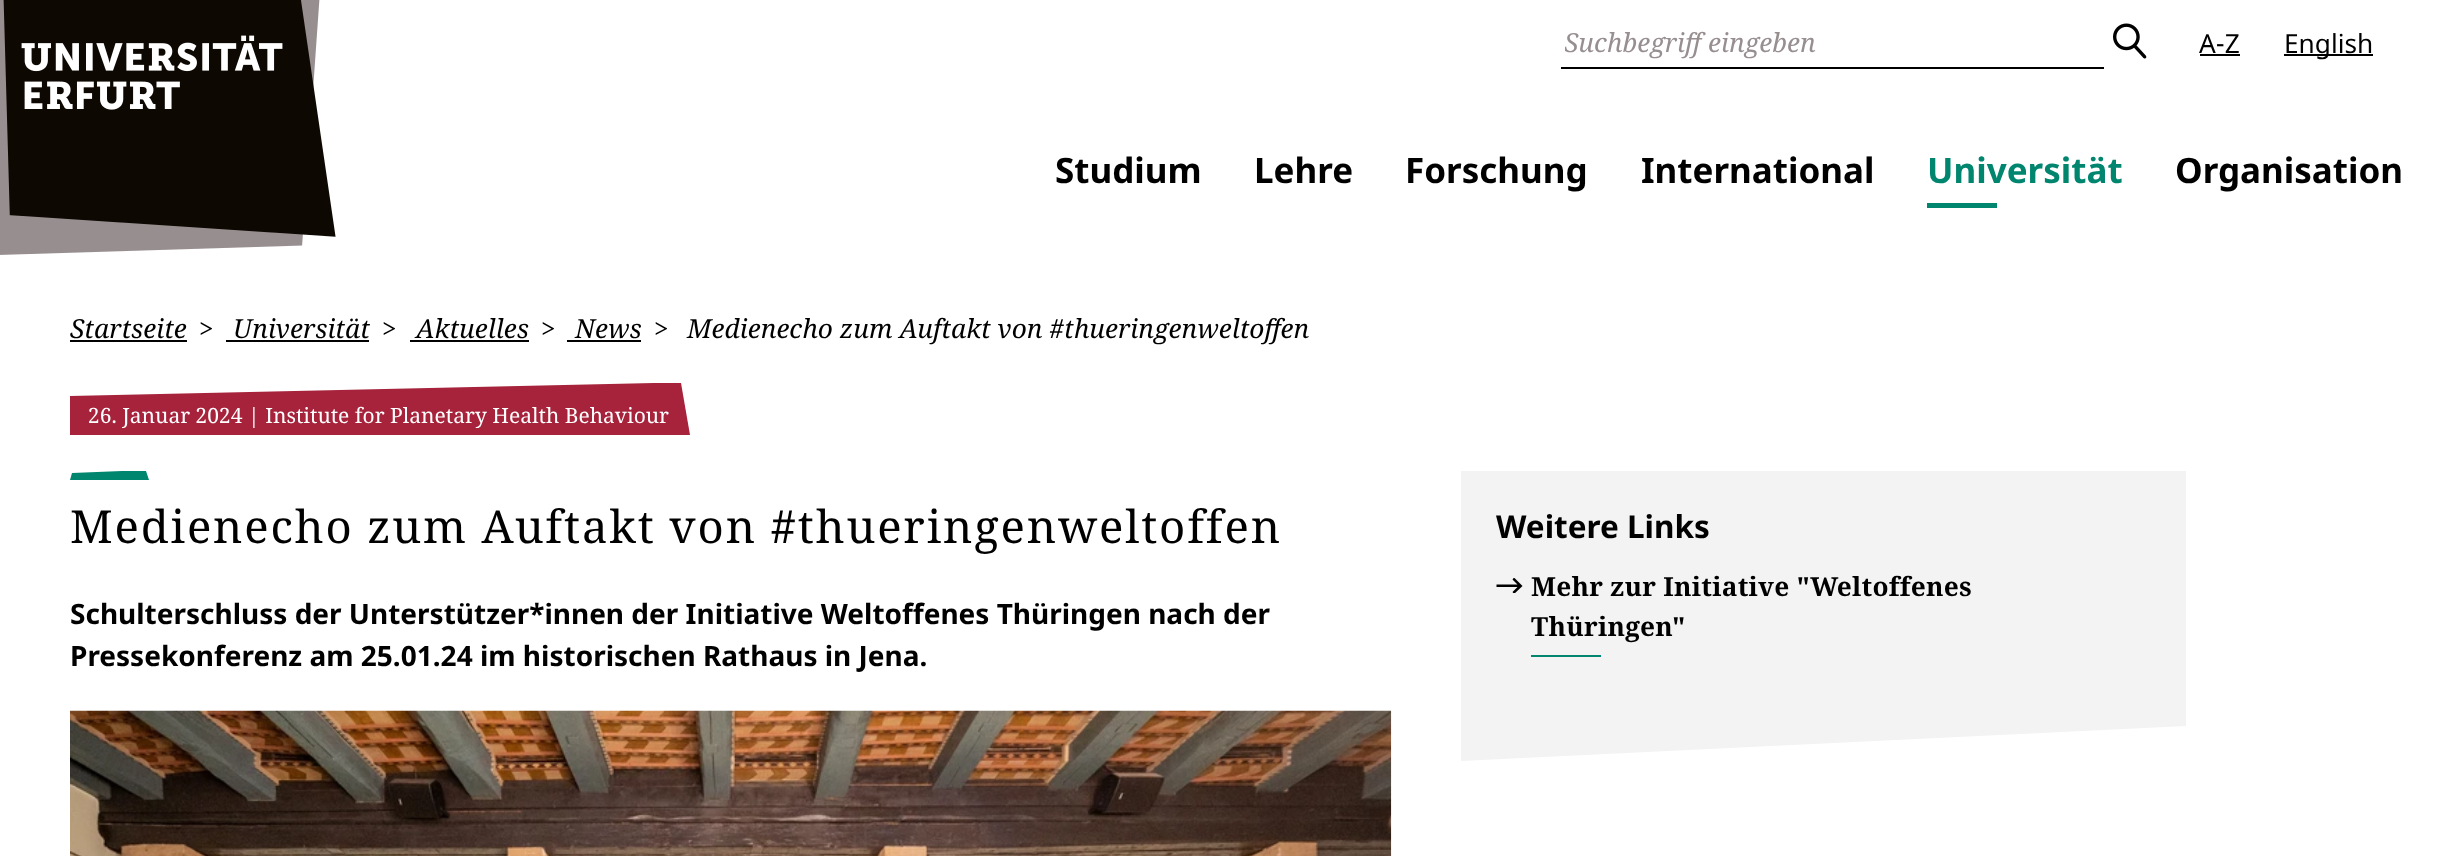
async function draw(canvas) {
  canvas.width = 2454;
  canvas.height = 856;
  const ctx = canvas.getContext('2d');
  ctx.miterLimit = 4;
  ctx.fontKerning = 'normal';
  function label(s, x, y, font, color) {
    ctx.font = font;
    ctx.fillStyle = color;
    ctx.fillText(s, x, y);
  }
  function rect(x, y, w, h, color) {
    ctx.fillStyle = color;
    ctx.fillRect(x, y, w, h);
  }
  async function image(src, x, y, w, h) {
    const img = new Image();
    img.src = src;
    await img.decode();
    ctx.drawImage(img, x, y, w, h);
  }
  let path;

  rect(0, 0, 2454, 856, '#fff');
  await image('assets/img1.png', 0, 0, 336, 255);
  rect(1561, 67, 543, 2, '#000');
  ctx.save();
  ctx.beginPath();
  ctx.rect(1565, 25, 528, 35);
  ctx.clip();
  label('Suchbegriff eingeben', 1564, 52, 'italic 26.25px Noto Serif', '#978e90');
  ctx.restore();
  await image('assets/img2.png', 2113, 23, 34, 36);
  label('A-Z', 2199, 53, '26.25px Noto Sans', '#000');
  rect(2200, 54, 40, 2, '#000');
  rect(2284, 54, 89, 2, '#000');
  label('English', 2284, 53, '26.25px Noto Sans', '#000');
  label('Studium', 1055, 183, 'bold 35px Noto Sans', '#000');
  label('Lehre', 1254, 183, 'bold 35px Noto Sans', '#000');
  label('Forschung', 1405, 183, 'bold 35px Noto Sans', '#000');
  label('International', 1641, 183, 'bold 35px Noto Sans', '#000');
  label('Universität', 1927, 183, 'bold 35px Noto Sans', '#00856f');
  rect(1927, 203, 70, 5, '#00856f');
  label('Organisation', 2175, 183, 'bold 35px Noto Sans', '#000');
  label('Startseite', 70, 338, 'italic 26.25px Noto Serif', '#000');
  rect(70, 340, 117, 2, '#000');
  label('>', 199, 338, 'italic 26.25px Noto Serif', '#000');
  label('Universität', 233, 338, 'italic 26.25px Noto Serif', '#000');
  rect(226, 340, 143, 2, '#000');
  label('>', 382, 338, 'italic 26.25px Noto Serif', '#000');
  label('Aktuelles', 416, 338, 'italic 26.25px Noto Serif', '#000');
  rect(410, 340, 119, 2, '#000');
  label('>', 541, 338, 'italic 26.25px Noto Serif', '#000');
  label('News', 575, 338, 'italic 26.25px Noto Serif', '#000');
  rect(567, 340, 74, 2, '#000');
  label('>', 654, 338, 'italic 26.25px Noto Serif', '#000');
  label('Medienecho zum Auftakt von #thueringenweltoffen', 687, 338, 'italic 26.25px Noto Serif', '#000');
  ctx.fillStyle = '#a6233b';
  path = new Path2D('M70 396V435H690L681 383H654Z');
  ctx.fill(path);
  label('26. Januar 2024 | Institute for Planetary Health Behaviour', 88, 423, '21px Noto Serif', '#fff');
  ctx.fillStyle = '#00856f';
  path = new Path2D('M72 473L70 480H149L146 471H122Z');
  ctx.fill(path);
  ctx.letterSpacing = '1.85px';
  label('Medienecho zum Auftakt von #thueringenweltoffen', 70, 543, '45.5px Noto Serif', '#000');
  ctx.letterSpacing = '0px';
  label('Schulterschluss der Unterstützer*innen der Initiative Weltoffenes Thüringen nach der', 70, 624, 'bold 28px Noto Sans', '#000');
  label('Pressekonferenz am 25.01.24 im historischen Rathaus in Jena.', 70, 666, 'bold 28px Noto Sans', '#000');
  await image('assets/img3.png', 70, 710, 1322, 146);
  ctx.fillStyle = '#f4f3f4';
  path = new Path2D('M2186 726L1461 761V471H2186Z');
  ctx.fill(path);
  label('Weitere Links', 1496, 538, 'bold 31.5px Noto Sans', '#000');
  ctx.save();
  ctx.beginPath();
  ctx.rect(1496, 578, 27, 15);
  ctx.clip();
  path = new Path2D('M1514 577.5L1512.5 579.5L1517.5 584.5H1496.5V587H1517.5L1512.5 592L1514 594L1522.5 586Z');
  ctx.fill(path);
  ctx.restore();
  ctx.letterSpacing = '0.25px';
  label('Mehr zur Initiative "Weltoffenes', 1531, 596, 'bold 26.25px Noto Serif', '#000');
  label('Thüringen"', 1531, 636, 'bold 26.25px Noto Serif', '#000');
  rect(1531, 655, 70, 2, '#00856f');
}

draw(document.querySelector('canvas'));
